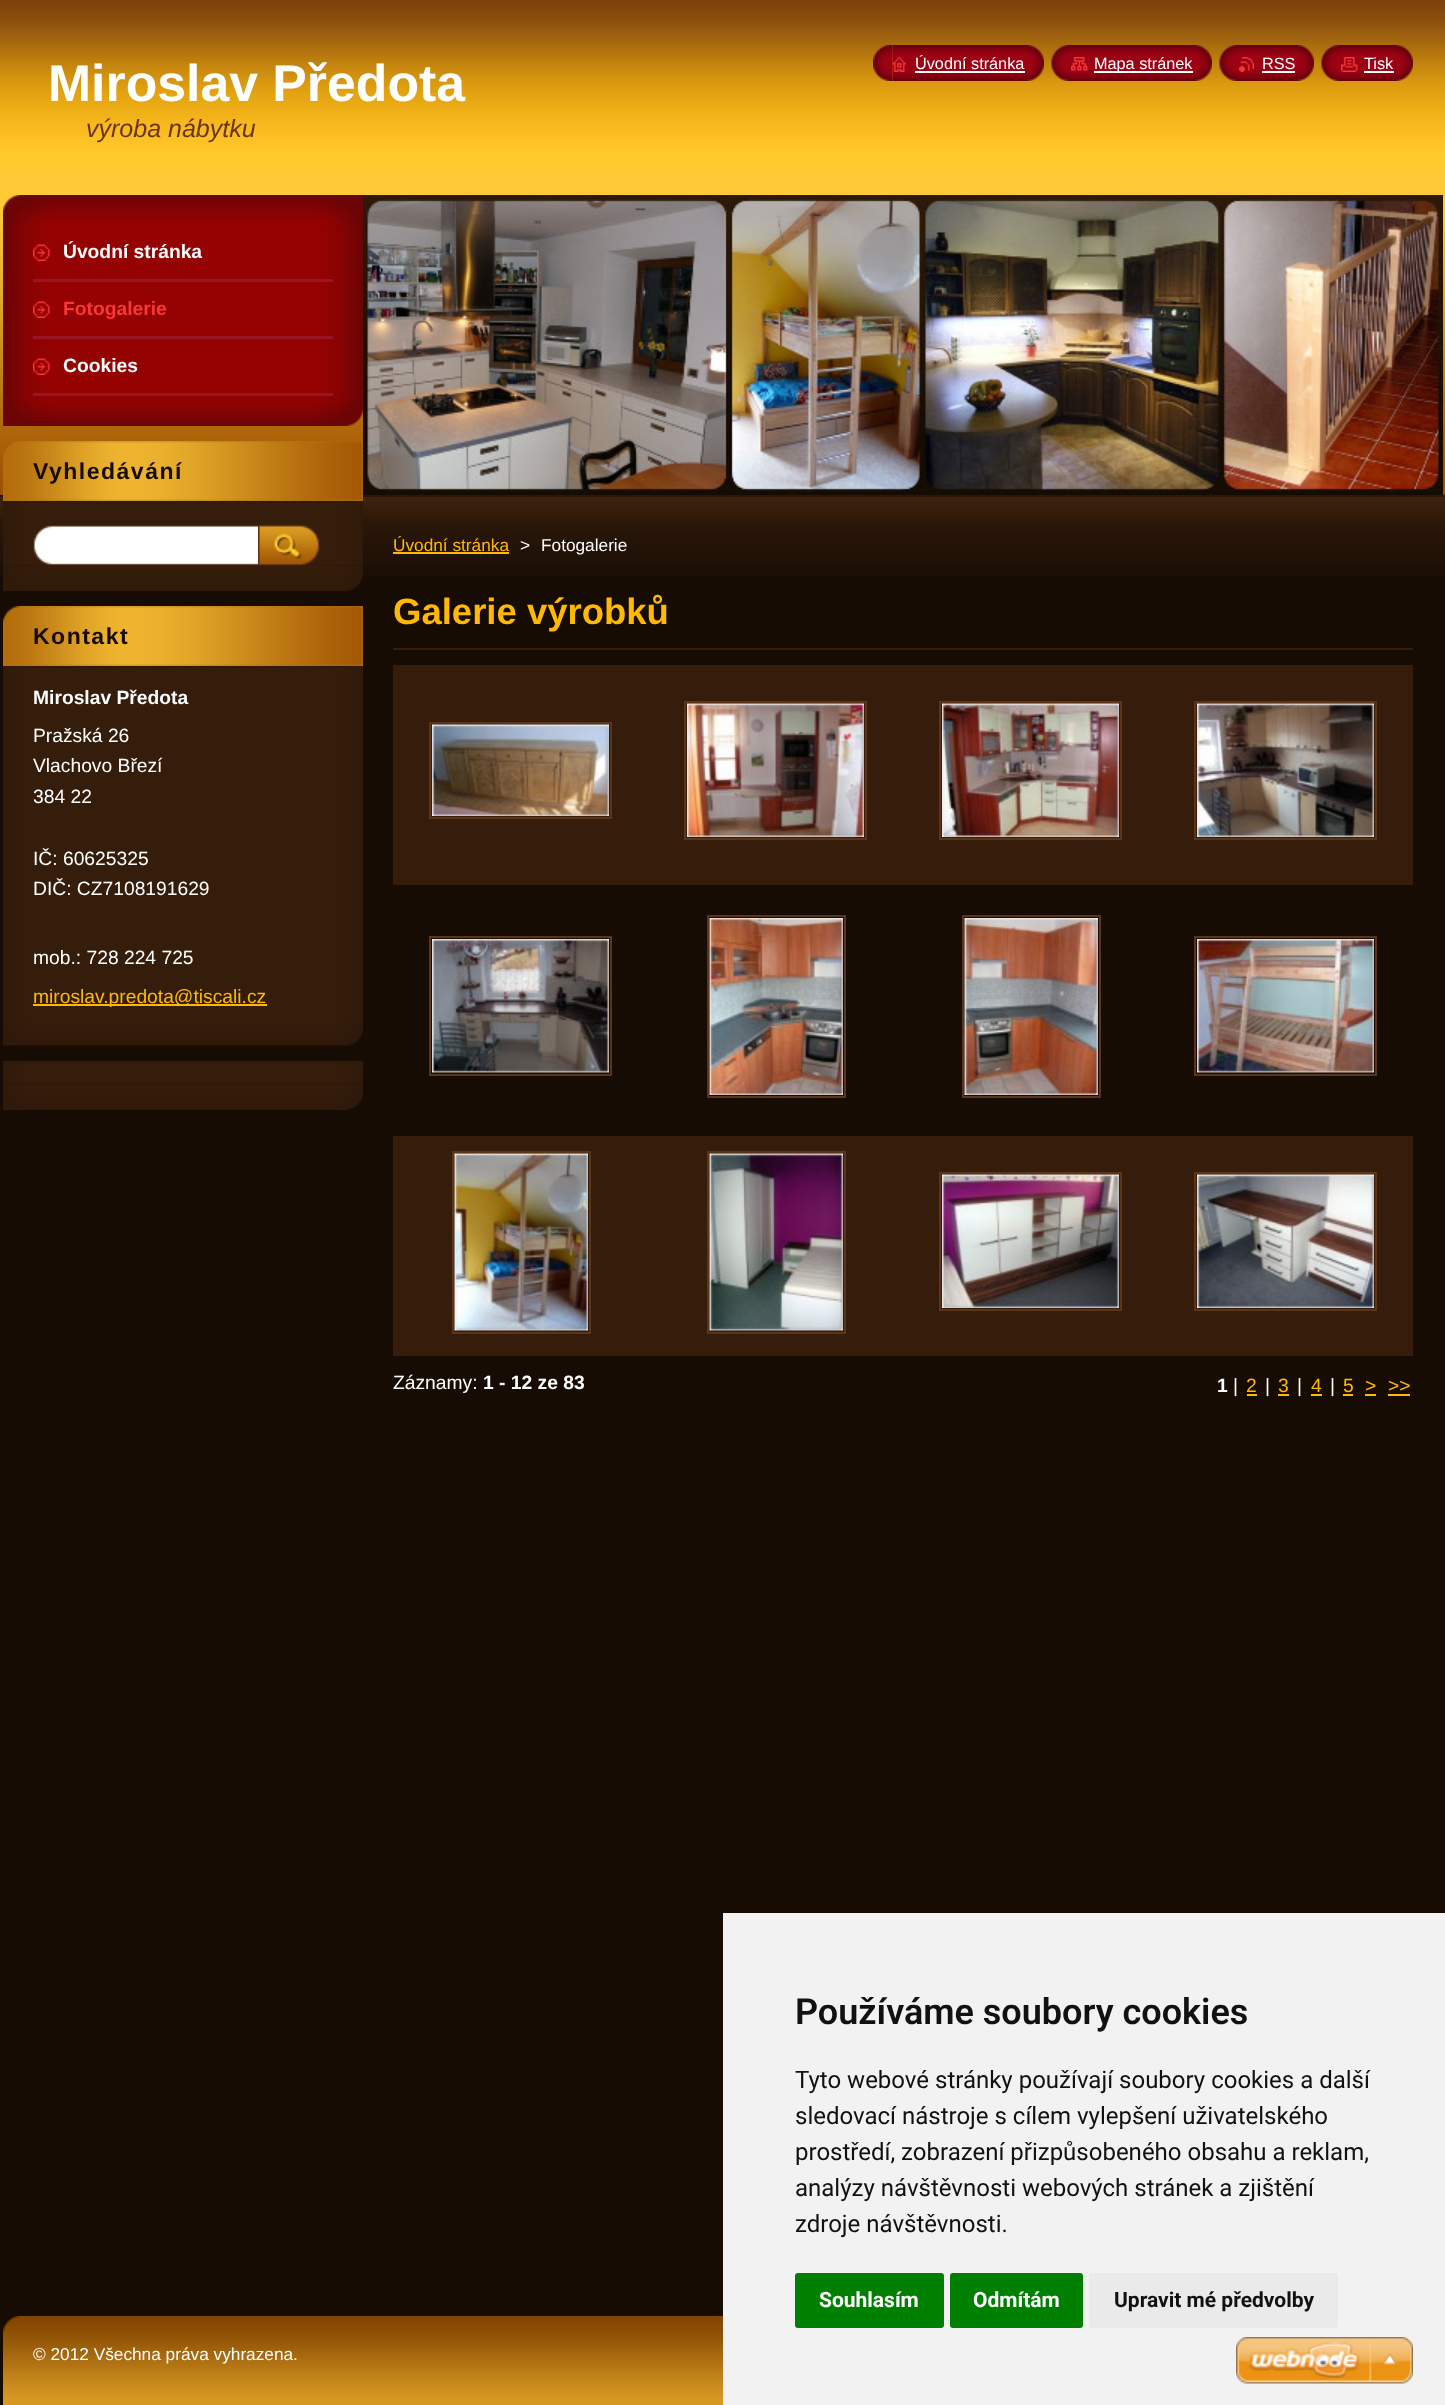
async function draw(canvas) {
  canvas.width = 1445;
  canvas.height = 2405;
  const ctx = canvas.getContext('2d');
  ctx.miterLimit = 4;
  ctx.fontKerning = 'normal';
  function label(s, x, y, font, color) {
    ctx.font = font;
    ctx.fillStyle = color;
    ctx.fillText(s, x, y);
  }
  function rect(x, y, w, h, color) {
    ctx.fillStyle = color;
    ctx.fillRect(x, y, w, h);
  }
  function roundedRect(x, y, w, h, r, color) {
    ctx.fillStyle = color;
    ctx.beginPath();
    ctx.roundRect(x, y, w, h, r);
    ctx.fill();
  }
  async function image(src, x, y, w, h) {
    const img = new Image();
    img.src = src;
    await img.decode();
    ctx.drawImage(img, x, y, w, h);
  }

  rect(0, 0, 1445, 2405, '#160c04');
  await image('assets/img1.png', 0, 0, 1445, 576);
  label('Miroslav Předota', 48, 101, 'bold 51.75px Liberation Sans', '#fff');
  label('výroba nábytku', 86, 137, 'italic 25px Liberation Sans', '#6a3610');
  await image('assets/img2.png', 873, 45, 20, 36);
  await image('assets/img3.png', 892, 45, 152, 36);
  await image('assets/img4.png', 892, 57, 14, 15);
  label('Úvodní stránka', 915, 69, '16.25px Liberation Sans', '#fff');
  rect(915, 71, 110, 2, '#fff');
  await image('assets/img5.png', 1051, 45, 20, 36);
  await image('assets/img6.png', 1071, 45, 141, 36);
  await image('assets/img7.png', 1071, 57, 17, 14);
  rect(1094, 71, 99, 2, '#fff');
  label('Mapa stránek', 1094, 69, '16.25px Liberation Sans', '#fff');
  await image('assets/img8.png', 1219, 45, 20, 36);
  await image('assets/img9.png', 1239, 45, 75, 36);
  await image('assets/img10.png', 1239, 57, 15, 15);
  label('RSS', 1262, 69, '16.25px Liberation Sans', '#fff');
  rect(1262, 71, 33, 2, '#fff');
  await image('assets/img11.png', 1321, 45, 20, 36);
  await image('assets/img12.png', 1341, 45, 72, 36);
  await image('assets/img13.png', 1341, 57, 17, 15);
  label('Tisk', 1364, 69, '16.25px Liberation Sans', '#fff');
  rect(1364, 71, 30, 2, '#fff');
  await image('assets/img14.png', 3, 195, 360, 30);
  await image('assets/img15.png', 3, 396, 360, 30);
  await image('assets/img16.png', 3, 225, 360, 171);
  rect(33, 279, 300, 3, '#991525');
  await image('assets/img17.png', 33, 244, 17, 17);
  label('Úvodní stránka', 63, 258, 'bold 19.25px Liberation Sans', '#fff');
  rect(33, 336, 300, 3, '#991525');
  await image('assets/img17.png', 33, 301, 17, 17);
  label('Fotogalerie', 63, 315, 'bold 19.25px Liberation Sans', '#f83737');
  rect(33, 393, 300, 3, '#991525');
  await image('assets/img17.png', 33, 358, 17, 17);
  label('Cookies', 63, 372, 'bold 19.25px Liberation Sans', '#fff');
  await image('assets/img18.png', 3, 565, 360, 26);
  await image('assets/img19.png', 3, 441, 360, 60);
  ctx.letterSpacing = '1.5px';
  label('Vyhledávání', 33, 479, 'bold 23px Liberation Sans', '#160c04');
  await image('assets/img20.png', 3, 503, 360, 63);
  rect(3, 501, 360, 2, '#2f1a0a');
  await image('assets/img21.png', 33, 525, 227, 41);
  await image('assets/img22.png', 258, 525, 62, 41);
  await image('assets/img23.png', 3, 1020, 360, 26);
  await image('assets/img24.png', 3, 606, 360, 60);
  label('Kontakt', 33, 644, 'bold 23px Liberation Sans', '#160c04');
  await image('assets/img25.png', 3, 668, 360, 352);
  rect(3, 666, 360, 2, '#2f1a0a');
  ctx.letterSpacing = '0px';
  label('Miroslav Předota', 33, 704, 'bold 19.25px Liberation Sans', '#fff');
  label('Pražská 26', 33, 742, '19.25px Liberation Sans', '#fff');
  label('Vlachovo Březí', 33, 772, '19.25px Liberation Sans', '#fff');
  label('384 22', 33, 803, '19.25px Liberation Sans', '#fff');
  label('IČ: 60625325', 33, 865, '19.25px Liberation Sans', '#fff');
  label('DIČ: CZ7108191629', 33, 895, '19.25px Liberation Sans', '#fff');
  label('mob.: 728 224 725', 33, 964, '19.25px Liberation Sans', '#fff');
  rect(33, 1004, 234, 2, '#ffb901');
  label('miroslav.predota@tiscali.cz', 33, 1003, '19.25px Liberation Sans', '#ffb901');
  await image('assets/img26.png', 3, 1084, 360, 26);
  await image('assets/img27.png', 3, 1060, 360, 25);
  rect(3, 1061, 351, 2, '#2f1a0a');
  await image('assets/img28.png', 363, 195, 1080, 300);
  label('Úvodní stránka', 393, 551, '17.25px Liberation Sans', '#ffb901');
  rect(393, 552, 116, 2, '#ffb901');
  label('>', 520, 551, '17.25px Liberation Sans', '#fff');
  label('Fotogalerie', 541, 551, '17.25px Liberation Sans', '#fff');
  rect(393, 648, 1020, 2, '#361d0b');
  label('Galerie výrobků', 393, 624, 'bold 36.5px Liberation Sans', '#ffb901');
  rect(393, 665, 1020, 220, '#361d0b');
  ctx.strokeStyle = '#5b3518';
  ctx.lineWidth = 2;
  ctx.strokeRect(430, 723, 181, 95);
  await image('assets/img29.png', 432, 724, 177, 92);
  ctx.strokeRect(685, 702, 181, 137);
  await image('assets/img30.png', 687, 703, 177, 134);
  ctx.strokeRect(940, 702, 181, 137);
  await image('assets/img31.png', 942, 703, 177, 134);
  ctx.strokeRect(1195, 702, 181, 137);
  await image('assets/img32.png', 1197, 703, 177, 134);
  ctx.strokeRect(430, 937, 181, 138);
  await image('assets/img33.png', 432, 939, 177, 134);
  ctx.strokeRect(708, 916, 137, 181);
  await image('assets/img34.png', 709, 918, 134, 177);
  ctx.strokeRect(963, 916, 137, 181);
  await image('assets/img35.png', 964, 918, 134, 177);
  ctx.strokeRect(1195, 937, 181, 138);
  await image('assets/img36.png', 1197, 939, 177, 134);
  rect(393, 1136, 1020, 220, '#361d0b');
  ctx.strokeRect(453, 1152, 137, 181);
  await image('assets/img37.png', 454, 1153, 134, 178);
  ctx.strokeRect(708, 1152, 137, 181);
  await image('assets/img38.png', 709, 1153, 134, 178);
  ctx.strokeRect(940, 1173, 181, 137);
  await image('assets/img39.png', 942, 1174, 177, 134);
  ctx.strokeRect(1195, 1173, 181, 137);
  await image('assets/img40.png', 1197, 1174, 177, 134);
  label('Záznamy:', 393, 1389, '19.25px Liberation Sans', '#fff');
  label('1 - 12 ze 83', 483, 1389, 'bold 19.25px Liberation Sans', '#fff');
  label('1', 1217, 1392, 'bold 19.25px Liberation Sans', '#fff');
  label('|', 1233, 1392, '19.25px Liberation Sans', '#fff');
  label('2', 1246, 1392, '19.25px Liberation Sans', '#ffb901');
  rect(1247, 1394, 10, 2, '#ffb901');
  label('|', 1265, 1392, '19.25px Liberation Sans', '#fff');
  label('3', 1278, 1392, '19.25px Liberation Sans', '#ffb901');
  rect(1278, 1394, 11, 2, '#ffb901');
  label('|', 1297, 1392, '19.25px Liberation Sans', '#fff');
  label('4', 1311, 1392, '19.25px Liberation Sans', '#ffb901');
  rect(1311, 1394, 11, 2, '#ffb901');
  label('|', 1330, 1392, '19.25px Liberation Sans', '#fff');
  label('5', 1343, 1392, '19.25px Liberation Sans', '#ffb901');
  rect(1343, 1394, 10, 2, '#ffb901');
  label('>', 1365, 1392, '19.25px Liberation Sans', '#ffb901');
  rect(1365, 1394, 11, 2, '#ffb901');
  label('>>', 1388, 1392, '19.25px Liberation Sans', '#ffb901');
  rect(1388, 1394, 22, 2, '#ffb901');
  await image('assets/img41.png', 3, 2316, 720, 89);
  label('© 2012 Všechna práva vyhrazena.', 33, 2360, '17.25px Liberation Sans', '#fff');
  rect(723, 1913, 722, 492, '#f2f2f2');
  label('Používáme soubory cookies', 795, 2024, '600 36px Roboto', '#111');
  label('Tyto webové stránky používají soubory cookies a další', 795, 2088, '24px Roboto', '#111');
  label('sledovací nástroje s cílem vylepšení uživatelského', 795, 2124, '24px Roboto', '#111');
  label('prostředí, zobrazení přizpůsobeného obsahu a reklam,', 795, 2160, '24px Roboto', '#111');
  label('analýzy návštěvnosti webových stránek a zjištění', 795, 2196, '24px Roboto', '#111');
  label('zdroje návštěvnosti.', 795, 2232, '24px Roboto', '#111');
  roundedRect(795, 2273, 149, 55, 3, '#008000');
  label('Souhlasím', 819, 2307, 'bold 21px Roboto', '#fff');
  roundedRect(950, 2273, 133, 55, 3, '#008000');
  label('Odmítám', 973, 2307, 'bold 21px Roboto', '#fff');
  roundedRect(1089, 2273, 249, 55, 3, '#eaeaea');
  label('Upravit mé předvolby', 1114, 2307, 'bold 21px Roboto', '#111');
  await image('assets/img42.png', 1236, 2337, 177, 47);
}

draw(document.querySelector('canvas'));
